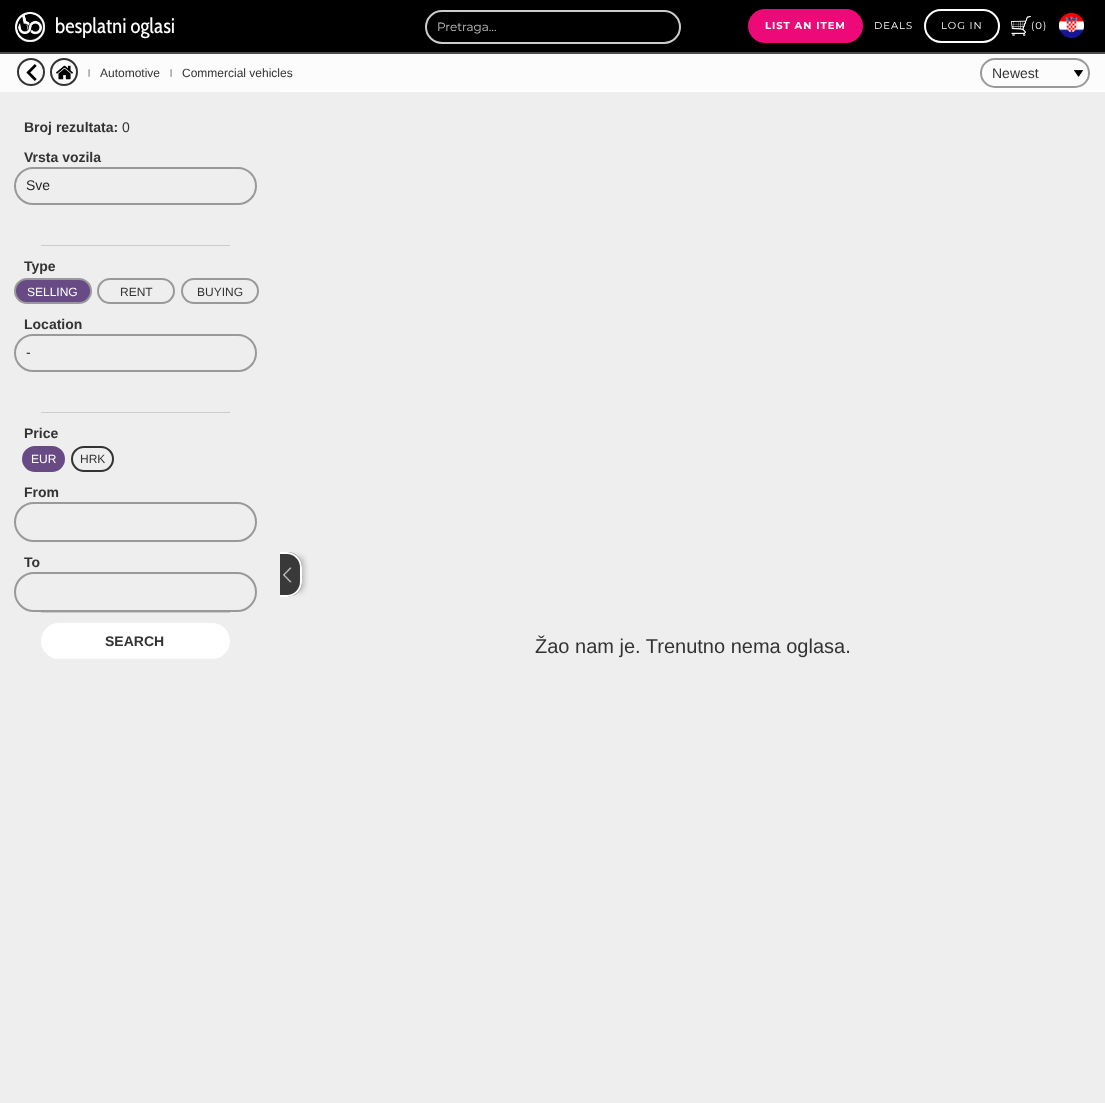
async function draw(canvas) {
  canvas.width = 1105;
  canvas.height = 1103;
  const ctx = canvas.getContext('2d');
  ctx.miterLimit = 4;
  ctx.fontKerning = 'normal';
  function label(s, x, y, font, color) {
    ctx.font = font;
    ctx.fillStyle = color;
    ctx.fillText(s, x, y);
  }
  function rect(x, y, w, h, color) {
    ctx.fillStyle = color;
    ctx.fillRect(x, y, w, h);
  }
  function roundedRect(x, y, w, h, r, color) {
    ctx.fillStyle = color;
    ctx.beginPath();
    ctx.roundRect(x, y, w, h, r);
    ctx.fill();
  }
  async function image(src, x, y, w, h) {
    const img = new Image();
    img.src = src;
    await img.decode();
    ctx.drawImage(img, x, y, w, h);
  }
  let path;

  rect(0, 0, 1105, 1103, '#000');
  rect(0, 54, 1105, 38, '#fcfcfc');
  rect(0, 52, 1105, 2, '#4c4c4c');
  await image('assets/img1.png', 15, 12, 30, 30);
  label('besplatni oglasi', 55, 33, '21px Cabin Condensed', '#fff');
  roundedRect(748, 9, 115, 34, 17, '#ee0979');
  ctx.letterSpacing = '1px';
  label('LIST AN ITEM', 765, 29, 'bold 10px Montserrat', '#fff');
  label('DEALS', 874, 29, '10px Montserrat', '#fff');
  ctx.beginPath();
  ctx.roundRect(925, 10, 74, 32, 16);
  ctx.strokeStyle = '#fff';
  ctx.lineWidth = 2;
  ctx.stroke();
  label('LOG IN', 941, 29, '10px Montserrat', '#fff');
  await image('assets/img2.png', 1011, 16, 20, 20);
  label('(0)', 1031, 29, '10px Montserrat', '#fff');
  await image('assets/img3.png', 1059, 13, 25, 25);
  ctx.beginPath();
  ctx.roundRect(426, 11, 254, 32, 16);
  ctx.strokeStyle = '#ccc';
  ctx.stroke();
  ctx.letterSpacing = '0px';
  label('Pretraga...', 437, 31, '12px Montserrat', '#c2c2c2');
  await image('assets/img4.png', 26, 64, 11, 17);
  ctx.beginPath();
  ctx.arc(31, 72, 13, 0, 2 * Math.PI);
  ctx.strokeStyle = '#333';
  ctx.stroke();
  await image('assets/img5.png', 56, 65, 17, 15);
  ctx.beginPath();
  ctx.arc(64, 72, 13, 0, 2 * Math.PI);
  ctx.stroke();
  label('|', 88, 75, '8px Liberation Sans', '#333');
  label('Automotive', 100, 77, '12px Liberation Sans', '#333');
  label('|', 170, 75, '8px Liberation Sans', '#333');
  label('Commercial vehicles', 182, 77, '12px Liberation Sans', '#333');
  await image('assets/img6.png', 1074, 70, 9, 7);
  ctx.beginPath();
  ctx.roundRect(981, 59, 108, 28, 14);
  ctx.strokeStyle = '#999';
  ctx.stroke();
  label('Newest', 992, 78, '14px Liberation Sans', '#333');
  rect(0, 92, 1105, 1011, '#eee');
  rect(280, 90, 825, 2, '#fff');
  label('Žao nam je. Trenutno nema oglasa.', 535, 653, '20px Liberation Sans', '#333');
  label('Broj rezultata:', 24, 132, 'bold 14px Liberation Sans', '#333');
  label('0', 122, 132, '14px Liberation Sans', '#333');
  label('Vrsta vozila', 24, 162, 'bold 14px Liberation Sans', '#333');
  ctx.beginPath();
  ctx.roundRect(15, 168, 241, 36, 18);
  ctx.stroke();
  label('Sve', 26, 190, '14px Liberation Sans', '#1f1f1f');
  rect(41, 245, 189, 1, '#ccc');
  label('Type', 24, 271, 'bold 14px Liberation Sans', '#333');
  ctx.fillStyle = '#684b85';
  ctx.beginPath();
  ctx.roundRect(15, 279, 76, 24, 12);
  ctx.fill();
  ctx.stroke();
  label('SELLING', 27, 296, '12px Liberation Sans', '#fff');
  ctx.beginPath();
  ctx.roundRect(98, 279, 76, 24, 12);
  ctx.stroke();
  label('RENT', 120, 296, '12px Liberation Sans', '#333');
  ctx.beginPath();
  ctx.roundRect(182, 279, 76, 24, 12);
  ctx.stroke();
  label('BUYING', 197, 296, '12px Liberation Sans', '#333');
  label('Location', 24, 329, 'bold 14px Liberation Sans', '#333');
  ctx.beginPath();
  ctx.roundRect(15, 335, 241, 36, 18);
  ctx.stroke();
  label('-', 26, 357, '14px Liberation Sans', '#1f1f1f');
  rect(41, 412, 189, 1, '#ccc');
  label('Price', 24, 438, 'bold 14px Liberation Sans', '#333');
  ctx.fillStyle = '#684b85';
  ctx.beginPath();
  ctx.roundRect(23, 447, 41, 24, 12);
  ctx.fill();
  ctx.strokeStyle = '#684b85';
  ctx.stroke();
  label('EUR', 31, 463, '12px Liberation Sans', '#fff');
  ctx.beginPath();
  ctx.roundRect(72, 447, 41, 24, 12);
  ctx.strokeStyle = '#333';
  ctx.stroke();
  label('HRK', 80, 463, '12px Liberation Sans', '#333');
  label('From', 24, 497, 'bold 14px Liberation Sans', '#333');
  ctx.beginPath();
  ctx.roundRect(15, 503, 241, 38, 19);
  ctx.strokeStyle = '#999';
  ctx.stroke();
  label('To', 24, 567, 'bold 14px Liberation Sans', '#333');
  ctx.beginPath();
  ctx.roundRect(15, 573, 241, 38, 19);
  ctx.stroke();
  rect(41, 612, 189, 1, '#ccc');
  roundedRect(41, 623, 189, 36, 18, '#fff');
  label('SEARCH', 105, 646, 'bold 14px Liberation Sans', '#333');
  ctx.save();
  path = new Path2D('M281 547H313V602H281ZM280 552H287C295.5 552 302 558.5 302 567V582C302 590.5 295.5 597 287 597H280Z');
  ctx.clip(path, 'evenodd');
  ctx.fillStyle = '#0000004f';
  ctx.filter = 'blur(3px)';
  ctx.beginPath();
  ctx.roundRect(291, 557, 12, 35, 10);
  ctx.fill();
  ctx.filter = 'none';
  ctx.restore();
  ctx.fillStyle = '#000000c2';
  ctx.beginPath();
  ctx.roundRect(280, 552, 22, 45, [0, 15, 15, 0]);
  ctx.fill();
  await image('assets/img7.png', 283, 567, 19, 16);
  ctx.fillStyle = '#fff';
  path = new Path2D('M280 552H287C295 552 302 559 302 567V582C302 590 295 597 287 597H280ZM280 554H287C294 554 300 560 300 567V582C300 589 294 595 287 595H280Z');
  ctx.fill(path, 'evenodd');
}

draw(document.querySelector('canvas'));
